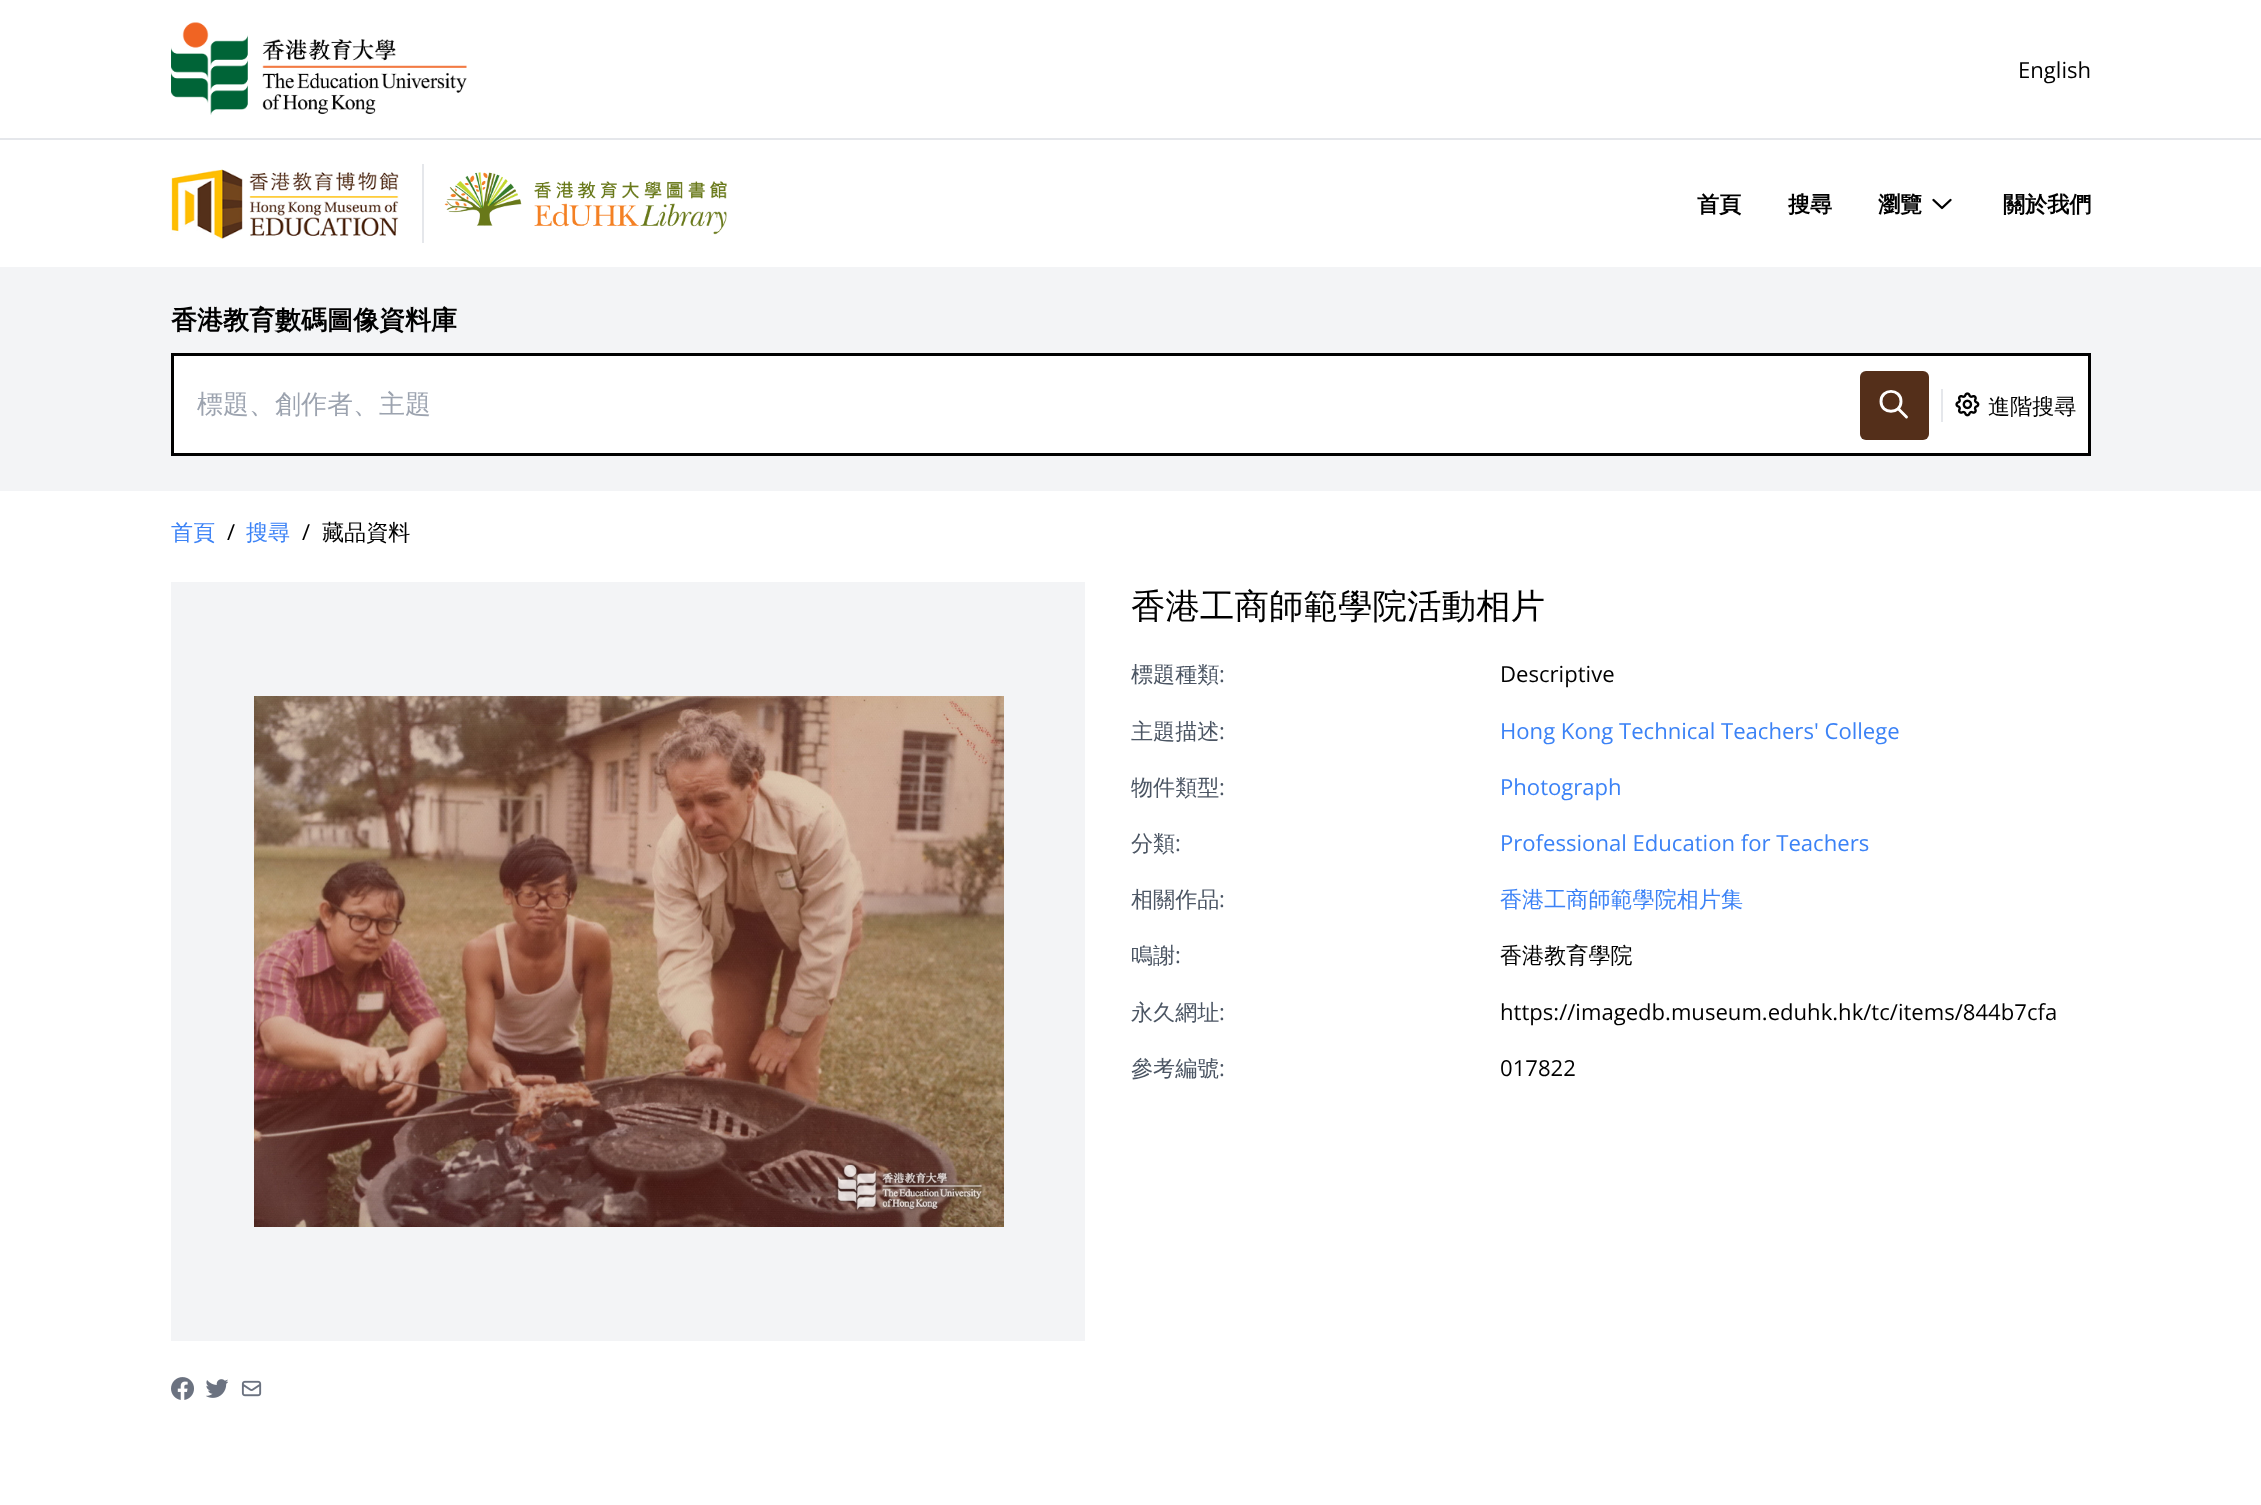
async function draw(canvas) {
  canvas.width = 2261;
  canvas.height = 1505;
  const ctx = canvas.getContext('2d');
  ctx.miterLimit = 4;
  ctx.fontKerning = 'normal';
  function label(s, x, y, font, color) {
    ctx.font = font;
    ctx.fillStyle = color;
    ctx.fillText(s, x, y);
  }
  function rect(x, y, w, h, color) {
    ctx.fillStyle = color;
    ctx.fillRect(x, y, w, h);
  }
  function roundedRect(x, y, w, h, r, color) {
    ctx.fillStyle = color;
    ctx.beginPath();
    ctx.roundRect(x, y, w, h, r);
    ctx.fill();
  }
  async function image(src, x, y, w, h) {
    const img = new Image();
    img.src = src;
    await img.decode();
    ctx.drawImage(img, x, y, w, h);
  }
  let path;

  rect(0, 0, 2261, 1505, '#fff');
  rect(0, 138, 2261, 2, '#e5e7eb');
  await image('assets/img1.png', 171, 22, 296, 93);
  label('English', 2018, 78, '22.1px Open Sans', '#000');
  await image('assets/img2.png', 171, 169, 228, 70);
  rect(422, 164, 2, 79, '#e5e7eb');
  await image('assets/img3.png', 444, 172, 283, 63);
  label('首頁', 1697, 212, 'bold 22.1px WenQuanYi Zen Hei', '#000');
  label('搜尋', 1788, 212, 'bold 22.1px WenQuanYi Zen Hei', '#000');
  label('瀏覽', 1878, 212, 'bold 22.1px WenQuanYi Zen Hei', '#000');
  path = new Path2D('M1950.5 200L1942 208L1933.5 200');
  ctx.strokeStyle = '#000';
  ctx.lineWidth = 2.4;
  ctx.lineCap = 'round';
  ctx.lineJoin = 'round';
  ctx.stroke(path);
  label('關於我們', 2003, 212, 'bold 22.1px WenQuanYi Zen Hei', '#000');
  rect(0, 267, 2261, 224, '#f3f4f6');
  label('香港教育數碼圖像資料庫', 171, 329, 'bold 26px WenQuanYi Zen Hei', '#000');
  ctx.fillStyle = '#fff';
  ctx.beginPath();
  ctx.rect(172.5, 354.5, 1917, 100);
  ctx.fill();
  ctx.lineWidth = 3;
  ctx.lineJoin = 'miter';
  ctx.stroke();
  label('標題、創作者、主題', 197, 413, '500 26px WenQuanYi Zen Hei', '#9ca3af');
  roundedRect(1860, 371, 69, 69, 6, '#542f1a');
  path = new Path2D('M1906.5 417L1898 408.5M1901 401.5C1901 414.5 1881 414.5 1881 401.5C1881 388 1901 388 1901 401.5Z');
  ctx.strokeStyle = '#fff';
  ctx.lineWidth = 2.9;
  ctx.lineJoin = 'round';
  ctx.stroke(path);
  rect(1941, 389, 2, 33, '#e5e7eb');
  await image('assets/img4.png', 1955, 392, 25, 25);
  label('進階搜尋', 1988, 414, '500 22.1px WenQuanYi Zen Hei', '#000');
  label('首頁', 171, 540, '500 22.1px WenQuanYi Zen Hei', '#3b82f6');
  label('/', 227, 540, '22.1px Open Sans', '#000');
  label('搜尋', 246, 540, '500 22.1px WenQuanYi Zen Hei', '#3b82f6');
  label('/', 302, 540, '22.1px Open Sans', '#000');
  label('藏品資料', 322, 540, '500 22.1px WenQuanYi Zen Hei', '#000');
  rect(171, 582, 914, 759, '#f3f4f6');
  await image('assets/img5.png', 254, 696, 750, 531);
  await image('assets/img6.png', 171, 1377, 23, 23);
  await image('assets/img7.png', 206, 1379, 22, 19);
  await image('assets/img8.png', 241, 1380, 21, 17);
  label('香港工商師範學院活動相片', 1131, 618, '500 34.5px WenQuanYi Zen Hei', '#000');
  label('標題種類', 1131, 682, '500 22.1px WenQuanYi Zen Hei', '#4b5563');
  label(':', 1219, 682, '22.1px Open Sans', '#4b5563');
  label('Descriptive', 1500, 682, '22.1px Open Sans', '#000');
  label('主題描述', 1131, 739, '500 22.1px WenQuanYi Zen Hei', '#4b5563');
  label(':', 1219, 739, '22.1px Open Sans', '#4b5563');
  label('Hong Kong Technical Teachers\' College', 1500, 739, '22.1px Open Sans', '#3b82f6');
  label('物件類型', 1131, 795, '500 22.1px WenQuanYi Zen Hei', '#4b5563');
  label(':', 1219, 795, '22.1px Open Sans', '#4b5563');
  label('Photograph', 1500, 795, '22.1px Open Sans', '#3b82f6');
  label('分類', 1131, 851, '500 22.1px WenQuanYi Zen Hei', '#4b5563');
  label(':', 1175, 851, '22.1px Open Sans', '#4b5563');
  label('Professional Education for Teachers', 1500, 851, '22.1px Open Sans', '#3b82f6');
  label('相關作品', 1131, 907, '500 22.1px WenQuanYi Zen Hei', '#4b5563');
  label(':', 1219, 907, '22.1px Open Sans', '#4b5563');
  label('香港工商師範學院相片集', 1500, 907, '500 22.1px WenQuanYi Zen Hei', '#3b82f6');
  label('鳴謝', 1131, 963, '500 22.1px WenQuanYi Zen Hei', '#4b5563');
  label(':', 1175, 963, '22.1px Open Sans', '#4b5563');
  label('香港教育學院', 1500, 963, '500 22.1px WenQuanYi Zen Hei', '#000');
  label('永久網址', 1131, 1020, '500 22.1px WenQuanYi Zen Hei', '#4b5563');
  label(':', 1219, 1020, '22.1px Open Sans', '#4b5563');
  label('https://imagedb.museum.eduhk.hk/tc/items/844b7cfa', 1500, 1020, '22.1px Open Sans', '#000');
  label('參考編號', 1131, 1076, '500 22.1px WenQuanYi Zen Hei', '#4b5563');
  label(':', 1219, 1076, '22.1px Open Sans', '#4b5563');
  label('017822', 1500, 1076, '22.1px Open Sans', '#000');
}

draw(document.querySelector('canvas'));
